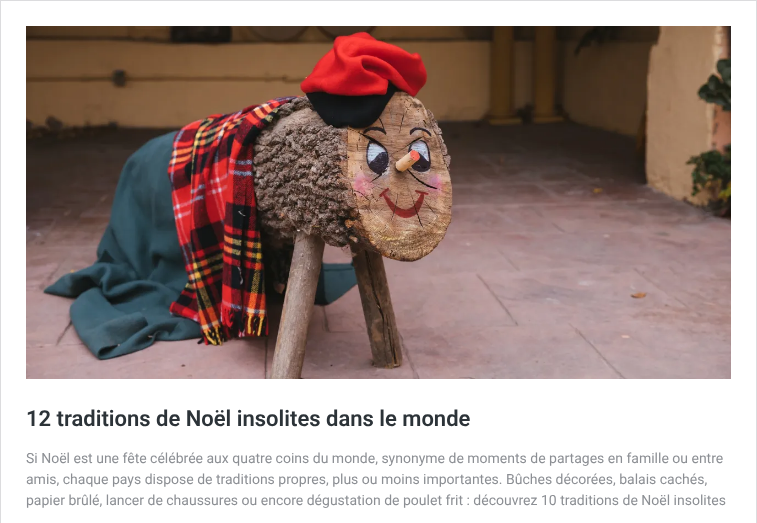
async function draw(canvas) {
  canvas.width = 757;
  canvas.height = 523;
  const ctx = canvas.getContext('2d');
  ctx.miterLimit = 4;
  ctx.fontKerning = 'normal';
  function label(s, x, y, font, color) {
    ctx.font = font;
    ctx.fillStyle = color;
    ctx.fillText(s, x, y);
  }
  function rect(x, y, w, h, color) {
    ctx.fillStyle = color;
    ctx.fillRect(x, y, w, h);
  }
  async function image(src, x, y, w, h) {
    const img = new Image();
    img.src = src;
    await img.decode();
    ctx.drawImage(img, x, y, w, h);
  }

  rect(0, 0, 757, 523, '#fff');
  ctx.strokeStyle = '#dcdcde';
  ctx.strokeRect(0.5, 0.5, 756, 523);
  await image('assets/img1.png', 26, 26, 705, 353);
  label('12 traditions de Noël insolites dans le monde', 26, 426, '600 22px Roboto', '#2c3338');
  label('Si Noël est une fête célébrée aux quatre coins du monde, synonyme de moments de partages en famille ou entre', 26, 463, '14px Roboto', '#8c8f94');
  label('amis, chaque pays dispose de traditions propres, plus ou moins importantes. Bûches décorées, balais cachés,', 26, 484, '14px Roboto', '#8c8f94');
  label('papier brûlé, lancer de chaussures ou encore dégustation de poulet frit : découvrez 10 traditions de Noël insolites', 26, 505, '14px Roboto', '#8c8f94');
}

draw(document.querySelector('canvas'));
